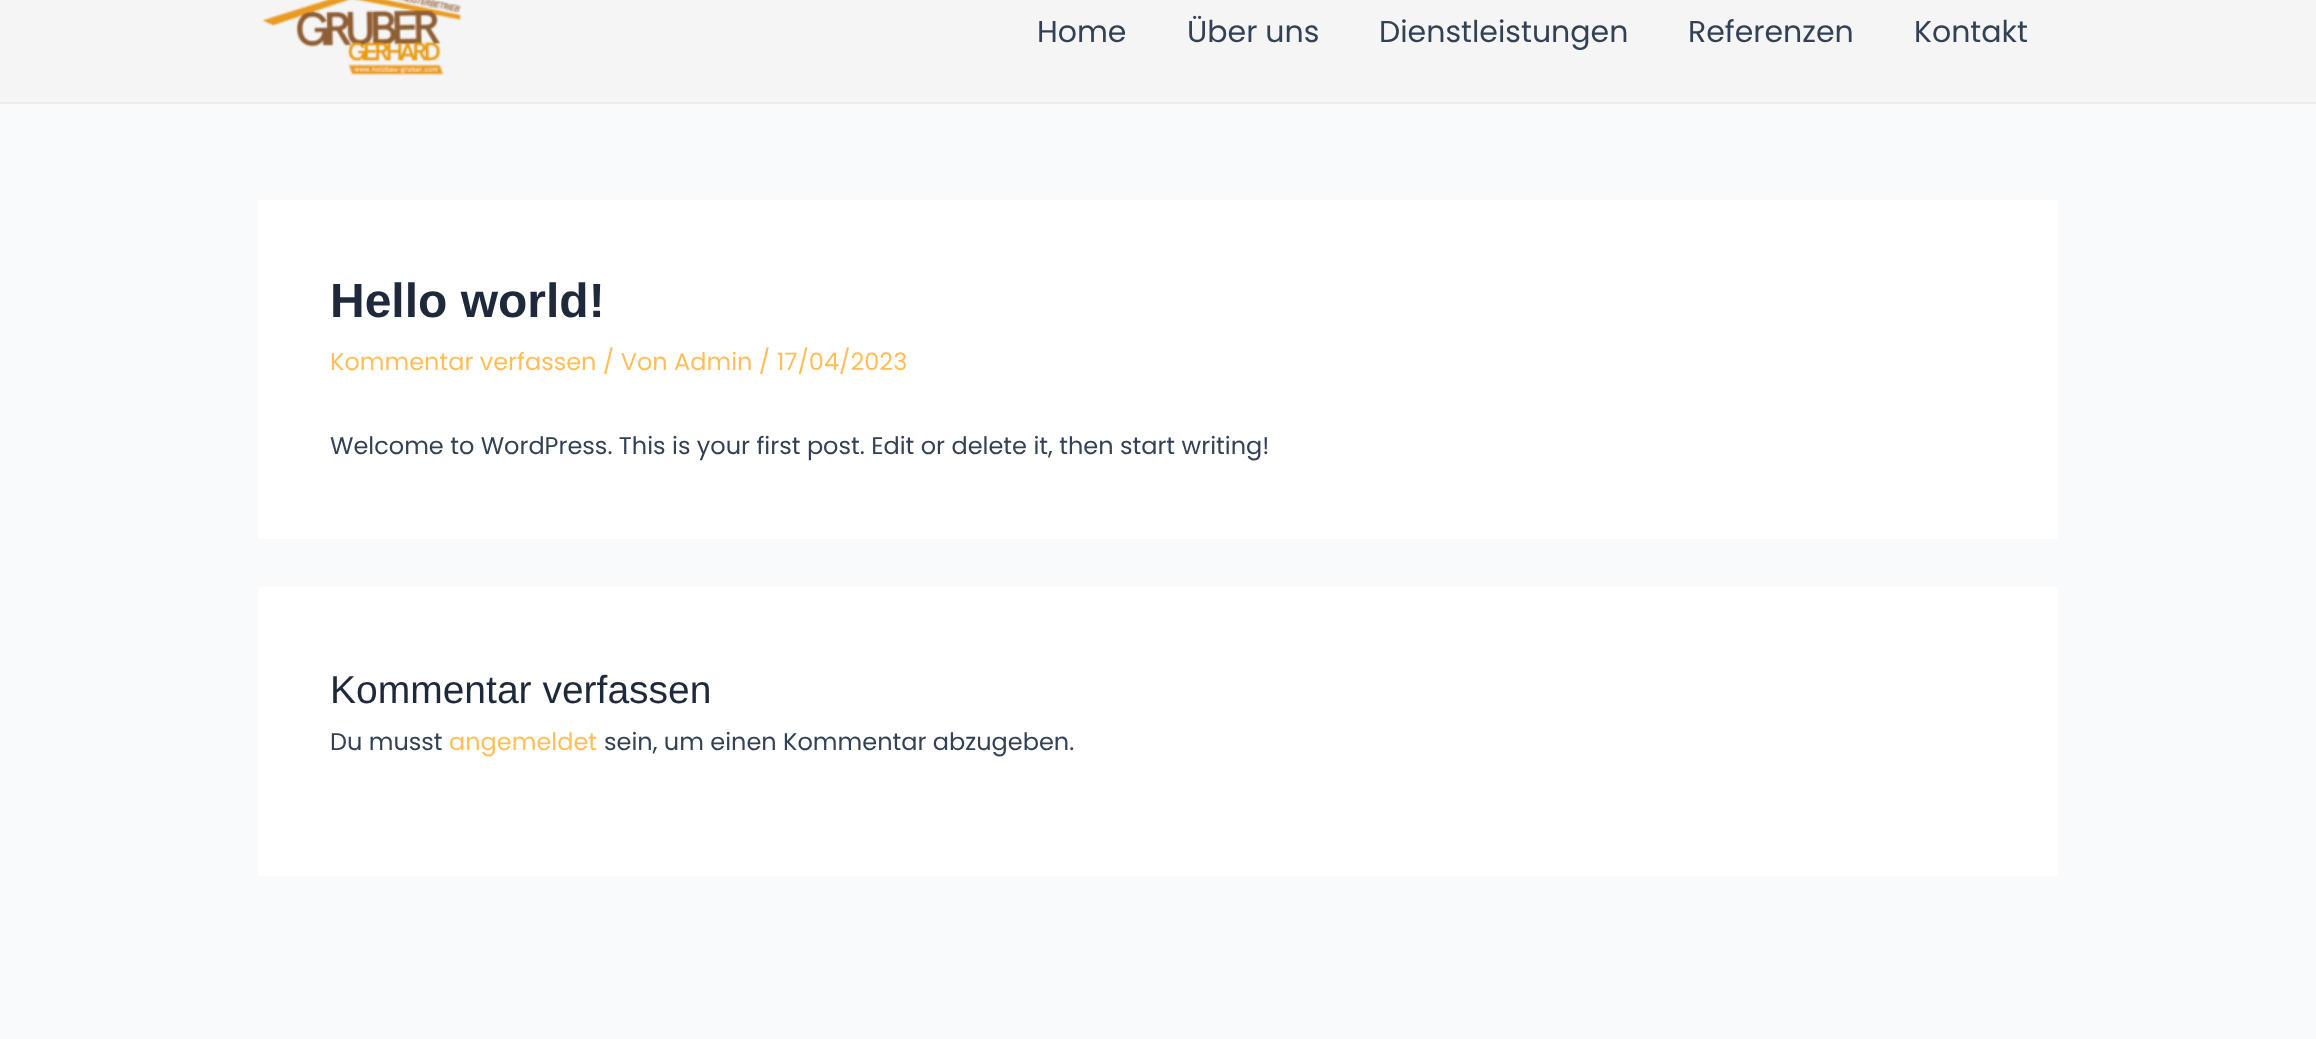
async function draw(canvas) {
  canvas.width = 2316;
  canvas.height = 1039;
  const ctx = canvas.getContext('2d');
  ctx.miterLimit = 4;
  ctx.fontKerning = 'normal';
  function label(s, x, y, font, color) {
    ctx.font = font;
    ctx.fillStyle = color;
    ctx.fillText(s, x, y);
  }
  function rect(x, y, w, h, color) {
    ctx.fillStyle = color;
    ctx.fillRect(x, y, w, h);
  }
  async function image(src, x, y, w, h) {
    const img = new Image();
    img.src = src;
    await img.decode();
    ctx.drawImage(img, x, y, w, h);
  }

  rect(0, 0, 2316, 1039, '#f9fafb');
  rect(0, 0, 2316, 102, '#f5f5f5');
  rect(0, 102, 2316, 2, '#ebebeb');
  await image('assets/img1.png', 262, 0, 200, 76);
  label('Home', 1037, 42, '30px Poppins', '#334155');
  label('Über uns', 1187, 42, '30px Poppins', '#334155');
  label('Dienstleistungen', 1379, 42, '30px Poppins', '#334155');
  label('Referenzen', 1688, 42, '30px Poppins', '#334155');
  label('Kontakt', 1914, 42, '30px Poppins', '#334155');
  rect(258, 200, 1800, 339, '#fff');
  label('Hello world!', 330, 317, 'bold 48px Liberation Sans', '#1e293b');
  label('Kommentar verfassen / Von Admin / 17/04/2023', 330, 370, '24px Poppins', '#ffbe58');
  label('Welcome to WordPress. This is your first post. Edit or delete it, then start writing!', 330, 454, '24px Poppins', '#334155');
  rect(258, 587, 1800, 289, '#fff');
  label('Kommentar verfassen', 330, 703, '39px Liberation Sans', '#1e293b');
  label('Du musst', 330, 750, '24px Poppins', '#334155');
  label('angemeldet', 449, 750, '24px Poppins', '#ffbe58');
  label('sein, um einen Kommentar abzugeben.', 604, 750, '24px Poppins', '#334155');
}

draw(document.querySelector('canvas'));
